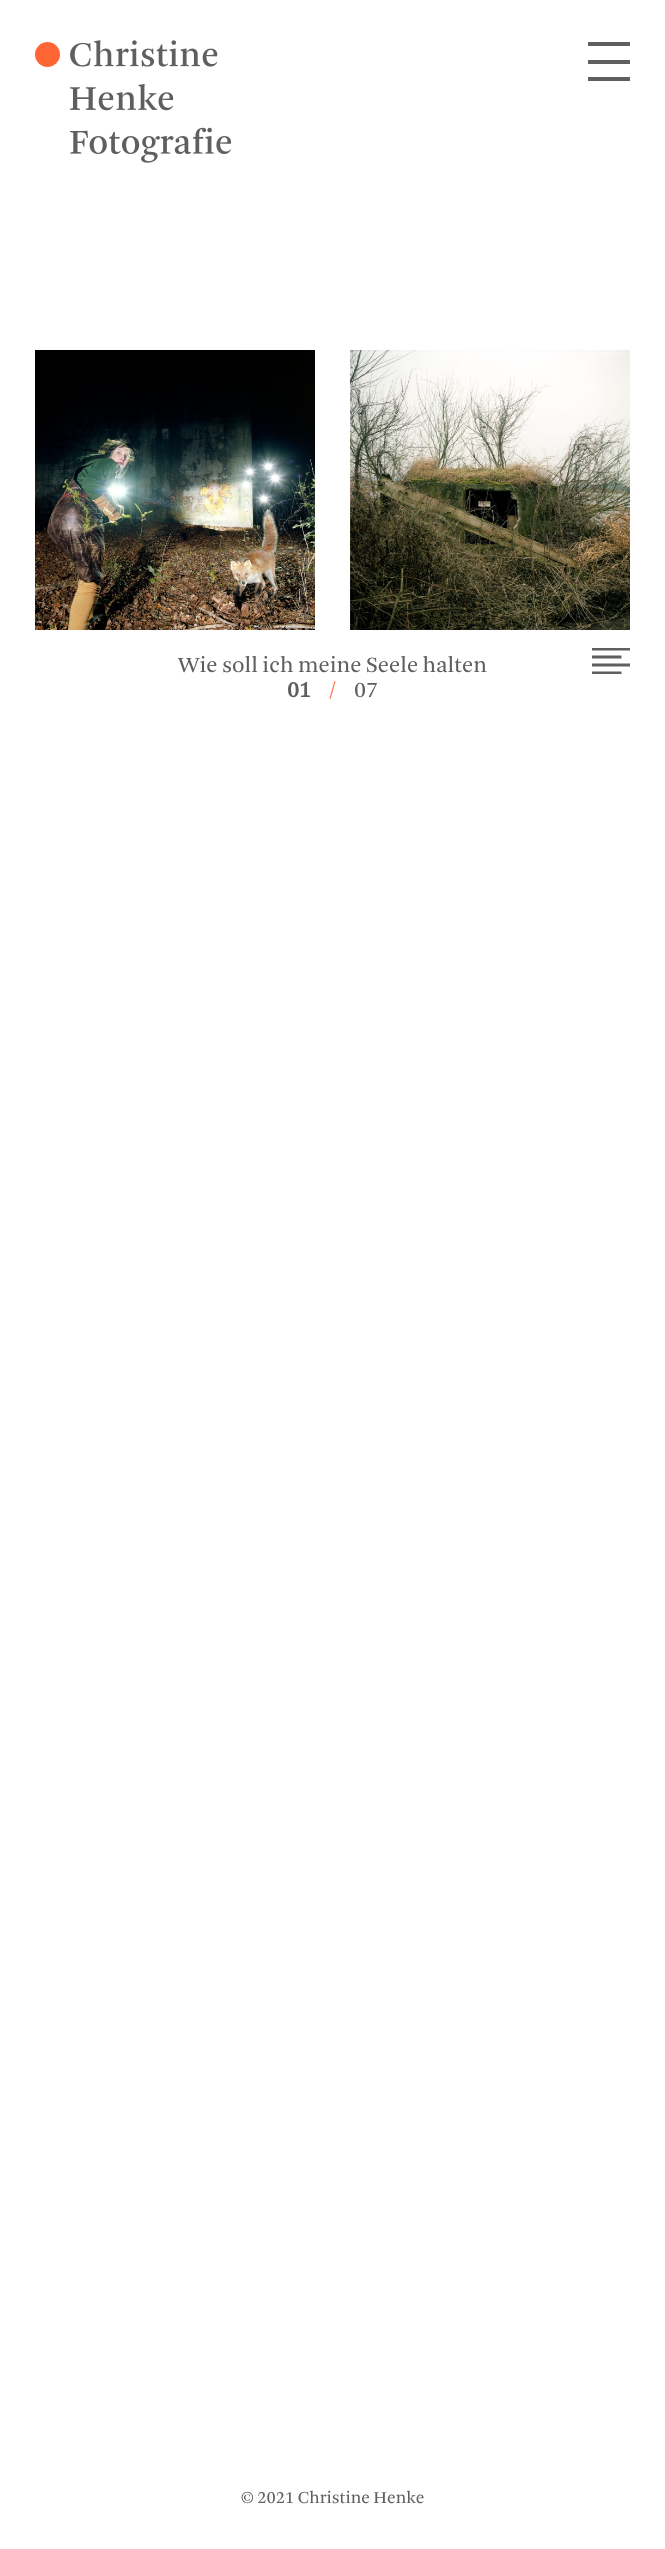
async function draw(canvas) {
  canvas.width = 665;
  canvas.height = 2549;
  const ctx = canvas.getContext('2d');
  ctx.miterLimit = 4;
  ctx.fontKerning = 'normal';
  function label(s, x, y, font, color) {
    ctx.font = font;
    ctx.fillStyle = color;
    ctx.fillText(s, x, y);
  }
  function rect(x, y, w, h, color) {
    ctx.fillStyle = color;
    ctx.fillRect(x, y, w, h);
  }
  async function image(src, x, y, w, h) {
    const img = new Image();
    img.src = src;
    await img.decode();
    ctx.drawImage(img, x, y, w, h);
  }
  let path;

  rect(0, 0, 665, 2549, '#fff');
  ctx.fillStyle = '#f63';
  ctx.beginPath();
  ctx.arc(47.5, 54.5, 12.5, 0, 2 * Math.PI);
  ctx.fill();
  await image('assets/img1.png', 70, 40, 161, 123);
  rect(588, 42, 42, 4, '#5f5f5f');
  rect(588, 60, 42, 4, '#5f5f5f');
  rect(588, 77, 42, 4, '#5f5f5f');
  await image('assets/img2.png', 35, 350, 280, 280);
  await image('assets/img3.png', 350, 350, 280, 280);
  label('Wie soll ich meine Seele halten', 178, 672, '22.75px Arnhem', '#5f5f5f');
  ctx.save();
  ctx.beginPath();
  ctx.rect(592, 648, 38, 26);
  ctx.clip();
  path = new Path2D('M591.5 649H630M591.5 665H630M591.5 673H621.5M591.5 657H621.5');
  ctx.strokeStyle = '#5f5f5f';
  ctx.lineWidth = 3;
  ctx.stroke(path);
  ctx.restore();
  label('01', 287, 697, 'bold 22.75px Arnhem', '#5f5f5f');
  label('/', 329, 697, '22.75px Arnhem', '#f63');
  label('07', 354, 697, '22.75px Arnhem', '#5f5f5f');
  label('© 2021 Christine Henke', 241, 2503, '17.5px Arnhem', '#5f5f5f');
}

draw(document.querySelector('canvas'));
